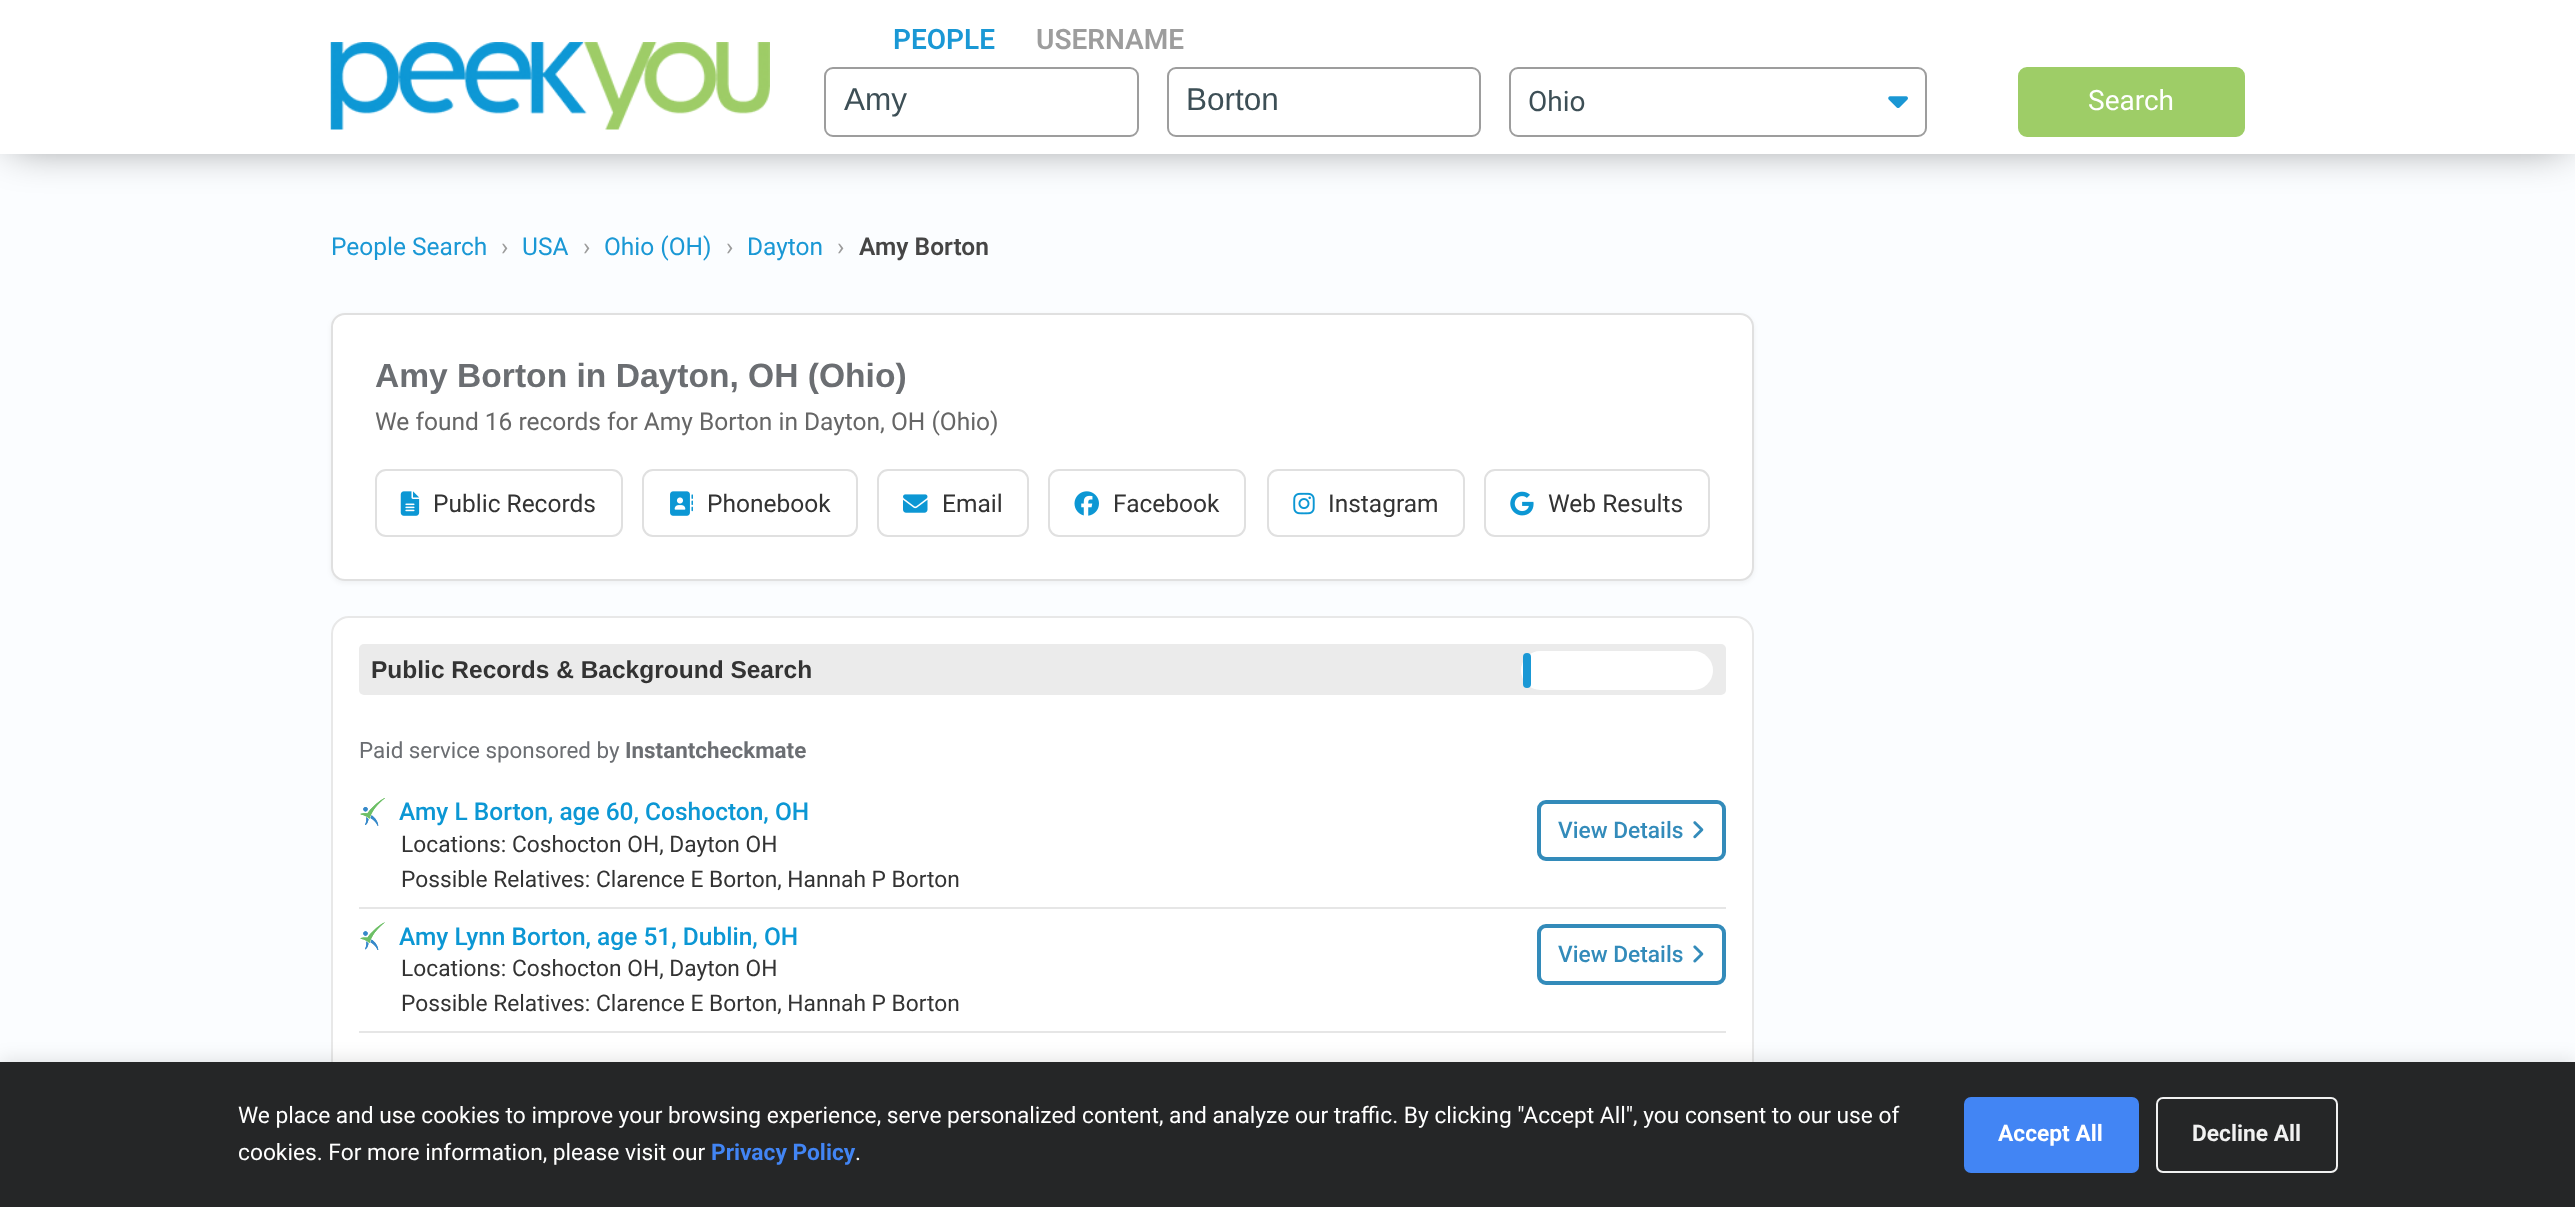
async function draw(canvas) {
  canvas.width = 2575;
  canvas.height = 1207;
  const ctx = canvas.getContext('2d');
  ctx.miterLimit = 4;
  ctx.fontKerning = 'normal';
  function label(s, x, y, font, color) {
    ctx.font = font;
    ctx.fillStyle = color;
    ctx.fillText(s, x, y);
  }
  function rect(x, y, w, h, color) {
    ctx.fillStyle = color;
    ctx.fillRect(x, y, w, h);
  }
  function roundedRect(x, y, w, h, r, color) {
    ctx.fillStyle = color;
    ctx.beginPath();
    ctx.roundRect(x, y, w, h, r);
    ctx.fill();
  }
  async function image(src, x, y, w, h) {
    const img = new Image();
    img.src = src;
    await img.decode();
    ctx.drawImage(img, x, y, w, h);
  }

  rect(0, 0, 2575, 1207, '#fbfdff');
  ctx.fillStyle = '#00000080';
  ctx.filter = 'blur(22px)';
  ctx.beginPath();
  ctx.rect(11, 11, 2555, 133);
  ctx.fill();
  ctx.filter = 'none';
  rect(0, 0, 2575, 154, '#fff');
  await image('assets/img1.png', 330, 42, 440, 88);
  label('PEOPLE', 893, 49, '600 28px Roboto', '#1a98d5');
  label('USERNAME', 1036, 49, '600 28px Roboto', '#9d9d9d');
  ctx.beginPath();
  ctx.roundRect(825, 68, 313, 68, 8);
  ctx.strokeStyle = '#9d9d9d';
  ctx.lineWidth = 2;
  ctx.stroke();
  label('Amy', 844, 110, '31.5px Liberation Sans', '#3d4f56');
  ctx.beginPath();
  ctx.roundRect(1168, 68, 312, 68, 8);
  ctx.stroke();
  label('Borton', 1186, 110, '31.5px Liberation Sans', '#3d4f56');
  ctx.beginPath();
  ctx.roundRect(1510, 68, 416, 68, 8);
  ctx.stroke();
  label('Ohio', 1528, 111, '28px Roboto', '#3d4f56');
  await image('assets/img2.png', 1888, 96, 20, 12);
  ctx.fillStyle = '#9ecd67';
  ctx.beginPath();
  ctx.roundRect(2019, 68, 225, 68, 8);
  ctx.fill();
  ctx.strokeStyle = '#9ecd67';
  ctx.stroke();
  label('Search', 2088, 110, '28px Roboto', '#fff');
  label('People Search', 331, 255, '24.5px Roboto', '#1a98d5');
  label('›', 501, 255, '24.5px Roboto', '#9d9d9d');
  label('USA', 522, 255, '24.5px Roboto', '#1a98d5');
  label('›', 583, 255, '24.5px Roboto', '#9d9d9d');
  label('Ohio (OH)', 604, 255, '24.5px Roboto', '#1a98d5');
  label('›', 726, 255, '24.5px Roboto', '#9d9d9d');
  label('Dayton', 747, 255, '24.5px Roboto', '#1a98d5');
  label('›', 837, 255, '24.5px Roboto', '#9d9d9d');
  label('Amy Borton', 859, 255, '600 24.5px Roboto', '#454545');
  ctx.fillStyle = '#0000000d';
  ctx.filter = 'blur(2.5px)';
  ctx.beginPath();
  ctx.roundRect(331, 315, 1423, 268, 14);
  ctx.fill();
  ctx.filter = 'none';
  ctx.fillStyle = '#fff';
  ctx.beginPath();
  ctx.roundRect(332, 314, 1421, 266, 13);
  ctx.fill();
  ctx.strokeStyle = '#e0e0e0';
  ctx.stroke();
  label('Amy Borton in Dayton, OH (Ohio)', 375, 387, 'bold 33.6px Liberation Sans', '#6b6e72');
  label('We found 16 records for Amy Borton in Dayton, OH (Ohio)', 375, 430, '24.5px Roboto', '#666');
  ctx.beginPath();
  ctx.roundRect(376, 470, 246, 66, 10);
  ctx.stroke();
  await image('assets/img3.png', 400, 491, 20, 25);
  label('Public Records', 433, 512, '24.5px Roboto', '#333');
  ctx.beginPath();
  ctx.roundRect(643, 470, 214, 66, 10);
  ctx.stroke();
  await image('assets/img4.png', 670, 491, 23, 25);
  label('Phonebook', 707, 512, '24.5px Roboto', '#333');
  ctx.beginPath();
  ctx.roundRect(878, 470, 150, 66, 10);
  ctx.stroke();
  await image('assets/img5.png', 903, 494, 25, 19);
  label('Email', 942, 512, '24.5px Roboto', '#333');
  ctx.beginPath();
  ctx.roundRect(1049, 470, 196, 66, 10);
  ctx.stroke();
  await image('assets/img6.png', 1074, 491, 25, 25);
  label('Facebook', 1113, 512, '24.5px Roboto', '#333');
  ctx.beginPath();
  ctx.roundRect(1268, 470, 196, 66, 10);
  ctx.stroke();
  await image('assets/img7.png', 1293, 492, 22, 23);
  label('Instagram', 1328, 512, '24.5px Roboto', '#333');
  ctx.beginPath();
  ctx.roundRect(1485, 470, 224, 66, 10);
  ctx.stroke();
  await image('assets/img8.png', 1510, 491, 24, 25);
  label('Web Results', 1548, 512, '24.5px Roboto', '#333');
  ctx.fillStyle = '#fff';
  ctx.beginPath();
  ctx.roundRect(332, 617, 1421, 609, 17);
  ctx.fill();
  ctx.strokeStyle = '#e8e8e8';
  ctx.stroke();
  roundedRect(359, 644, 1367, 51, 5, '#ebebeb');
  label('Public Records & Background Search', 371, 678, 'bold 24.5px Liberation Sans', '#333');
  roundedRect(1521, 651, 192, 39, 19.5, '#fff');
  roundedRect(1523, 653, 8, 35, 4, '#1a98d5');
  label('Paid service sponsored by', 359, 758, '22.4px Roboto', '#6b6e72');
  label('Instantcheckmate', 625, 758, 'bold 22.4px Roboto', '#6b6e72');
  rect(359, 907, 1367, 2, '#e6e6e6');
  await image('assets/img9.png', 360, 798, 25, 28);
  await image('assets/img10.png', 360, 798, 25, 28);
  label('Amy L Borton, age 60, Coshocton, OH', 399, 820, '500 24.5px Roboto', '#0c97d4');
  ctx.beginPath();
  ctx.roundRect(1539, 802, 185, 57, 7);
  ctx.strokeStyle = '#338bba';
  ctx.lineWidth = 4;
  ctx.stroke();
  label('View Details', 1558, 838, '500 22.75px Roboto', '#338bba');
  await image('assets/img11.png', 1693, 821, 11, 18);
  label('Locations: Coshocton OH, Dayton OH', 401, 852, '22.75px Roboto', '#333');
  label('Possible Relatives: Clarence E Borton, Hannah P Borton', 401, 887, '22.75px Roboto', '#333');
  rect(359, 1031, 1367, 2, '#e6e6e6');
  await image('assets/img12.png', 360, 922, 25, 28);
  await image('assets/img13.png', 360, 922, 25, 28);
  label('Amy Lynn Borton, age 51, Dublin, OH', 399, 945, '500 24.5px Roboto', '#0c97d4');
  ctx.beginPath();
  ctx.roundRect(1539, 926, 185, 57, 7);
  ctx.stroke();
  label('View Details', 1558, 962, '500 22.75px Roboto', '#338bba');
  await image('assets/img14.png', 1693, 945, 11, 18);
  label('Locations: Coshocton OH, Dayton OH', 401, 976, '22.75px Roboto', '#333');
  label('Possible Relatives: Clarence E Borton, Hannah P Borton', 401, 1011, '22.75px Roboto', '#333');
  ctx.fillStyle = '#0000001a';
  ctx.filter = 'blur(9px)';
  ctx.beginPath();
  ctx.rect(0, 1059, 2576, 145);
  ctx.fill();
  ctx.filter = 'none';
  rect(0, 1062, 2575, 145, '#252627');
  label('We place and use cookies to improve your browsing experience, serve personalized content, and analyze our traffic. By clicking "Accept All", you consent to our use of', 238, 1123, '22.75px Roboto', '#fff');
  label('cookies. For more information, please visit our', 238, 1160, '22.75px Roboto', '#fff');
  label('Privacy Policy', 711, 1160, 'bold 22.75px Roboto', '#4285f4');
  label('.', 855, 1160, '22.75px Roboto', '#fff');
  roundedRect(1964, 1097, 175, 76, 7, '#4285f4');
  label('Accept All', 1998, 1141, 'bold 22.75px Roboto', '#fff');
  ctx.beginPath();
  ctx.roundRect(2157, 1098, 180, 74, 6);
  ctx.strokeStyle = '#f1f1f1';
  ctx.lineWidth = 2;
  ctx.stroke();
  label('Decline All', 2192, 1141, 'bold 22.75px Roboto', '#f1f1f1');
}

draw(document.querySelector('canvas'));
